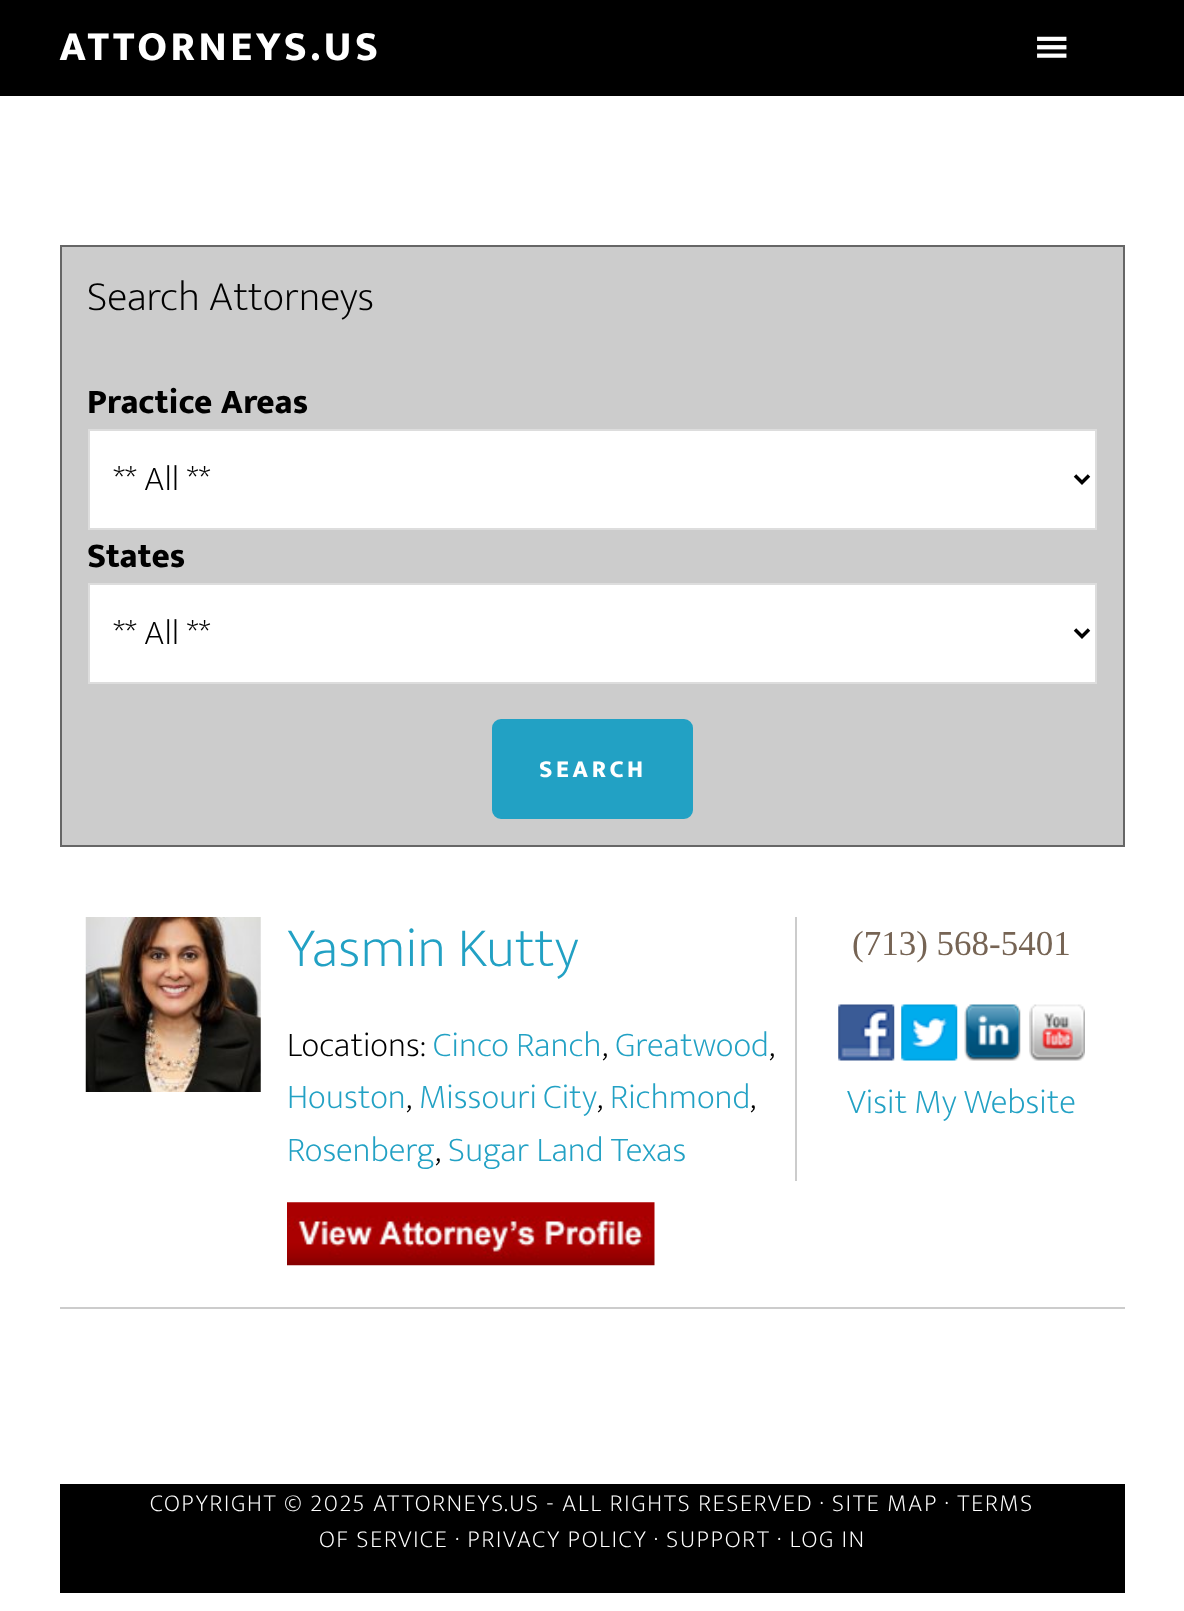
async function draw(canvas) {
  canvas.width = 1184;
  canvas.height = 1611;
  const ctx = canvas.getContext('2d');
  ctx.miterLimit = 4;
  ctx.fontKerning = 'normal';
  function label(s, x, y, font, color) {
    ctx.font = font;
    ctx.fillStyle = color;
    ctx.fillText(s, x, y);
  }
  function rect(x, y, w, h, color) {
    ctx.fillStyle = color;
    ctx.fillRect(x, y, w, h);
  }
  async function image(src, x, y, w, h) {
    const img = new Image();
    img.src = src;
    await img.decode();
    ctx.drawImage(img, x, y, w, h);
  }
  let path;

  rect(0, 0, 1184, 1611, '#fff');
  rect(0, 0, 1184, 96, '#000');
  ctx.letterSpacing = '3.5px';
  label('ATTORNEYS.US', 59, 60, '800 42px Ek Mukta', '#fff');
  await image('assets/img1.png', 1037, 36, 30, 22);
  ctx.fillStyle = '#ccc';
  ctx.beginPath();
  ctx.rect(61, 246, 1063, 600);
  ctx.fill();
  ctx.strokeStyle = '#666';
  ctx.lineWidth = 2;
  ctx.stroke();
  ctx.letterSpacing = '0px';
  label('Search Attorneys', 87, 310, '200 42px Ek Mukta', '#000');
  label('Practice Areas', 87, 413, '800 35px Ek Mukta', '#000');
  ctx.fillStyle = '#fff';
  ctx.beginPath();
  ctx.rect(89, 430, 1007, 99);
  ctx.fill();
  ctx.strokeStyle = '#ddd';
  ctx.stroke();
  path = new Path2D('M1075 475.5L1082 482.5L1089 475.5');
  ctx.strokeStyle = '#000';
  ctx.lineWidth = 3.5;
  ctx.stroke(path);
  label('** All **', 113, 490, '200 35px Ek Mukta', '#000');
  label('States', 87, 567, '800 35px Ek Mukta', '#000');
  ctx.fillStyle = '#fff';
  ctx.beginPath();
  ctx.rect(89, 584, 1007, 99);
  ctx.fill();
  ctx.strokeStyle = '#ddd';
  ctx.lineWidth = 2;
  ctx.stroke();
  path = new Path2D('M1075 629.5L1082 636.5L1089 629.5');
  ctx.strokeStyle = '#000';
  ctx.lineWidth = 3.5;
  ctx.stroke(path);
  label('** All **', 113, 644, '200 35px Ek Mukta', '#000');
  ctx.fillStyle = '#22a1c4';
  ctx.beginPath();
  ctx.roundRect(494, 721, 197, 96, 7);
  ctx.fill();
  ctx.strokeStyle = '#22a1c4';
  ctx.lineWidth = 4;
  ctx.stroke();
  ctx.letterSpacing = '3.5px';
  label('SEARCH', 539, 777, '800 24.5px Ek Mukta', '#fff');
  rect(60, 1307, 1065, 2, '#ccc');
  await image('assets/img2.png', 85, 917, 176, 175);
  ctx.letterSpacing = '0px';
  label('Yasmin Kutty', 287, 966, '200 56px Ek Mukta', '#22a1c4');
  label('Locations:', 287, 1056, '200 35px Ek Mukta', '#000');
  label('Cinco Ranch', 433, 1056, '200 35px Ek Mukta', '#22a1c4');
  label(',', 602, 1056, '200 35px Ek Mukta', '#000');
  label('Greatwood', 615, 1056, '200 35px Ek Mukta', '#22a1c4');
  label(',', 769, 1056, '200 35px Ek Mukta', '#000');
  label('Houston', 287, 1108, '200 35px Ek Mukta', '#22a1c4');
  label(',', 406, 1108, '200 35px Ek Mukta', '#000');
  ctx.wordSpacing = '-1px';
  label('Missouri City', 419, 1108, '200 35px Ek Mukta', '#22a1c4');
  ctx.wordSpacing = '0px';
  label(',', 597, 1108, '200 35px Ek Mukta', '#000');
  label('Richmond', 610, 1108, '200 35px Ek Mukta', '#22a1c4');
  label(',', 750, 1108, '200 35px Ek Mukta', '#000');
  label('Rosenberg', 287, 1161, '200 35px Ek Mukta', '#22a1c4');
  label(',', 435, 1161, '200 35px Ek Mukta', '#000');
  label('Sugar Land Texas', 448, 1161, '200 35px Ek Mukta', '#22a1c4');
  await image('assets/img3.png', 287, 1202, 368, 64);
  rect(795, 917, 2, 264, '#ccc');
  label('(713) 568-5401', 852, 955, '35px Liberation Serif', '#766454');
  await image('assets/img4.png', 838, 1004, 57, 57);
  await image('assets/img5.png', 901, 1004, 57, 57);
  await image('assets/img6.png', 964, 1004, 57, 57);
  await image('assets/img7.png', 1029, 1004, 56, 57);
  label('Visit My Website', 847, 1113, '200 35px Ek Mukta', '#22a1c4');
  rect(60, 1484, 1065, 109, '#000');
  ctx.letterSpacing = '1.75px';
  label('COPYRIGHT © 2025 ATTORNEYS.US - ALL RIGHTS RESERVED · SITE MAP · TERMS', 150, 1511, '200 24.5px Ek Mukta', '#fff');
  label('OF SERVICE · PRIVACY POLICY · SUPPORT · LOG IN', 319, 1547, '200 24.5px Ek Mukta', '#fff');
}

draw(document.querySelector('canvas'));
